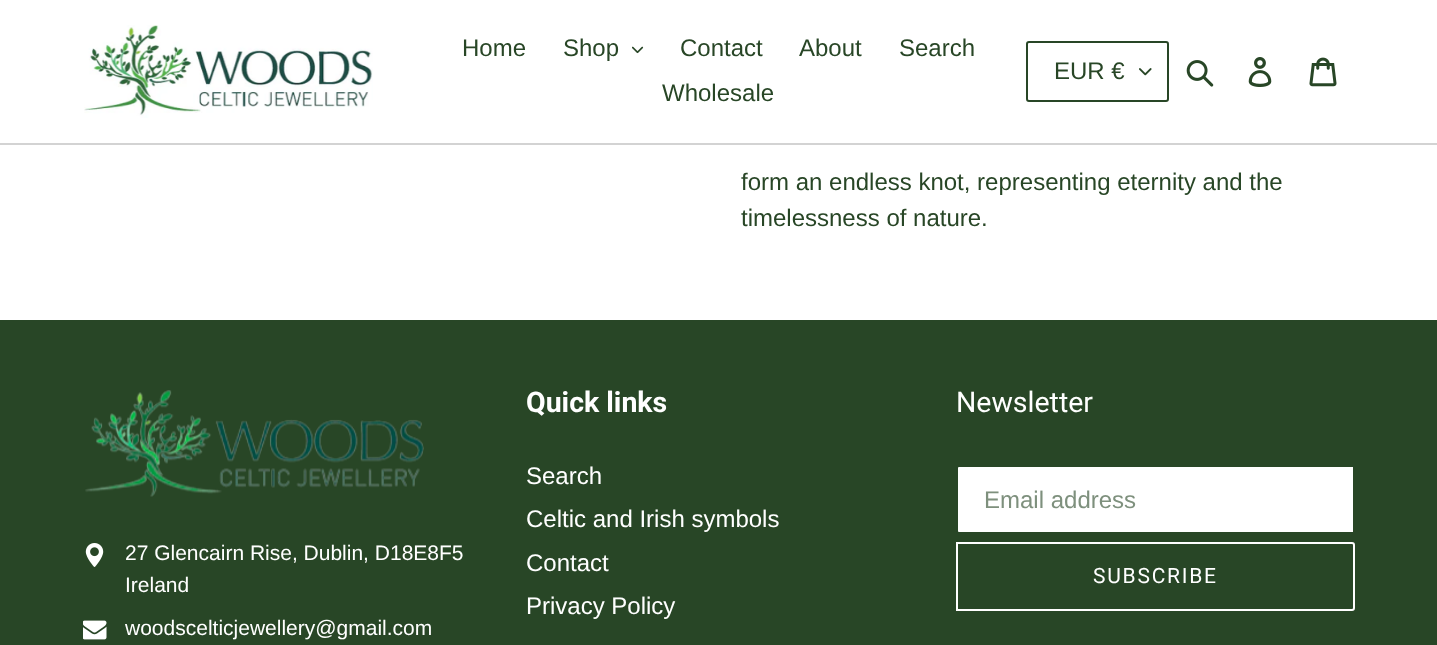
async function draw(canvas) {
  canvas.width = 1437;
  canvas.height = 645;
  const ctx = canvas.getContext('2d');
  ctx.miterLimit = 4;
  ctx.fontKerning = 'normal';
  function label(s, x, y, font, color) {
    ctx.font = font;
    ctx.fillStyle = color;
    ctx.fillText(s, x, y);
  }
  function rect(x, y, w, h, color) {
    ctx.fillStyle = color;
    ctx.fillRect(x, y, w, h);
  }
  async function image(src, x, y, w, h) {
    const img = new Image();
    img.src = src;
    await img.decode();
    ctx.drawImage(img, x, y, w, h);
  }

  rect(0, 0, 1437, 645, '#fff');
  rect(0, 143, 1437, 2, '#d3d3d3');
  await image('assets/img1.png', 84, 25, 289, 93);
  label('Home', 462, 56, '24px Liberation Sans', '#284626');
  label('Shop', 563, 56, '24px Liberation Sans', '#284626');
  await image('assets/img2.png', 632, 46, 12, 8);
  label('Contact', 680, 56, '24px Liberation Sans', '#284626');
  label('About', 799, 56, '24px Liberation Sans', '#284626');
  label('Search', 899, 56, '24px Liberation Sans', '#284626');
  label('Wholesale', 662, 101, '24px Liberation Sans', '#284626');
  await image('assets/img3.png', 1139, 68, 13, 8);
  ctx.beginPath();
  ctx.roundRect(1027, 42, 141, 59, 2);
  ctx.strokeStyle = '#284626';
  ctx.lineWidth = 2;
  ctx.stroke();
  label('EUR €', 1054, 79, '24px Liberation Sans', '#284626');
  await image('assets/img4.png', 1186, 60, 28, 27);
  await image('assets/img5.png', 1248, 57, 24, 30);
  await image('assets/img6.png', 1309, 57, 28, 30);
  label('form an endless knot, representing eternity and the', 741, 190, '24px Liberation Sans', '#284626');
  label('timelessness of nature.', 741, 226, '24px Liberation Sans', '#284626');
  rect(0, 320, 1437, 325, '#284626');
  await image('assets/img7.png', 85, 390, 339, 107);
  await image('assets/img8.png', 85, 543, 19, 24);
  label('27 Glencairn Rise, Dublin, D18E8F5', 125, 560, '21px Liberation Sans', '#fff');
  label('Ireland', 125, 592, '21px Liberation Sans', '#fff');
  await image('assets/img9.png', 83, 620, 24, 20);
  label('woodscelticjewellery@gmail.com', 125, 635, '21px Liberation Sans', '#fff');
  label('Quick links', 526, 412, 'bold 28.5px Roboto', '#fff');
  label('Search', 526, 484, '24px Liberation Sans', '#fff');
  label('Celtic and Irish symbols', 526, 527, '24px Liberation Sans', '#fff');
  label('Contact', 526, 571, '24px Liberation Sans', '#fff');
  label('Privacy Policy', 526, 614, '24px Liberation Sans', '#fff');
  label('Newsletter', 956, 412, '28.5px Roboto', '#fff');
  ctx.beginPath();
  ctx.roundRect(957, 466, 397, 67, [2, 0, 0, 2]);
  ctx.fill();
  ctx.stroke();
  label('Email address', 984, 508, '24px Liberation Sans', '#7e907d');
  ctx.beginPath();
  ctx.roundRect(957, 543, 397, 67, [0, 2, 2, 0]);
  ctx.strokeStyle = '#fff';
  ctx.stroke();
  ctx.letterSpacing = '1.75px';
  label('SUBSCRIBE', 1093, 583, '21px Roboto', '#fff');
}

draw(document.querySelector('canvas'));
